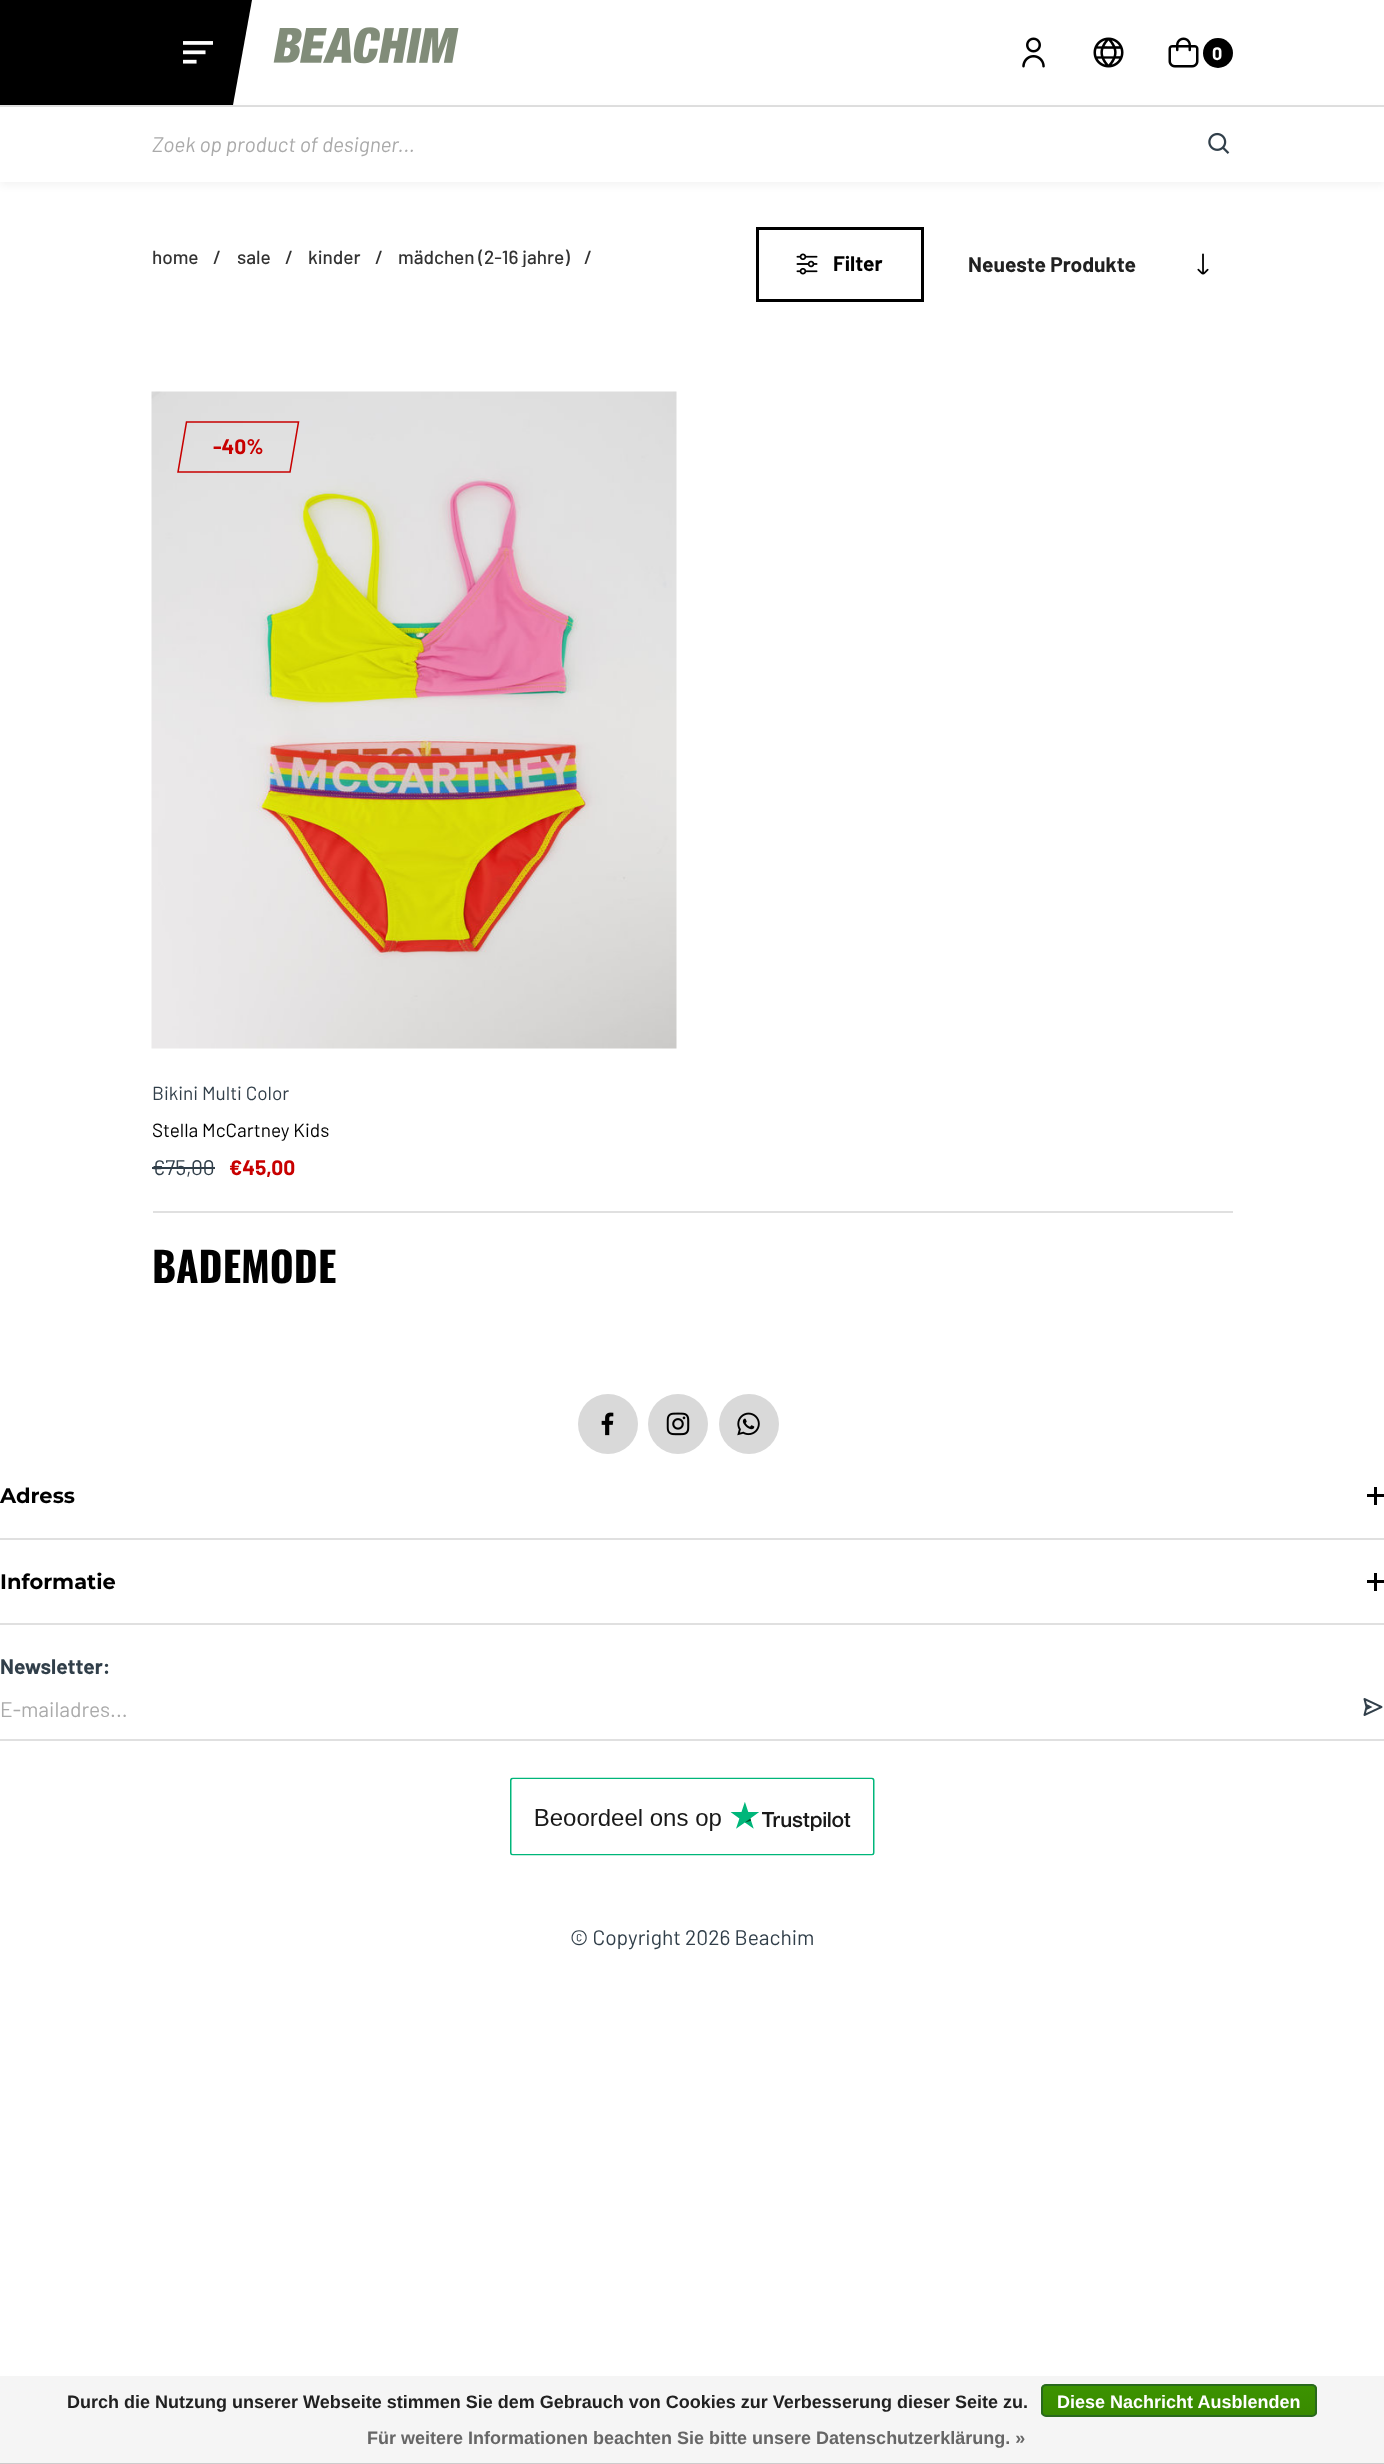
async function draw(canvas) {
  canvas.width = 1384;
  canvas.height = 2464;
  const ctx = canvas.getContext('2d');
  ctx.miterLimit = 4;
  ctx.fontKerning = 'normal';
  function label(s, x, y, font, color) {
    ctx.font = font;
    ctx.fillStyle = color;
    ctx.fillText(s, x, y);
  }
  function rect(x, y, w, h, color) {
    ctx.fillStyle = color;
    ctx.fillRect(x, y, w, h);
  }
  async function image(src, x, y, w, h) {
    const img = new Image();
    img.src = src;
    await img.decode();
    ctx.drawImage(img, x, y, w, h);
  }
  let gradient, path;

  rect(0, 0, 1384, 2464, '#fff');
  rect(0, 105, 1384, 2, '#e0e0e0');
  ctx.fillStyle = '#000';
  path = new Path2D('M162 0H252L233 105H143Z');
  ctx.fill(path);
  path = new Path2D('M-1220 0H165L146 105H-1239Z');
  ctx.fill(path);
  await image('assets/img1.png', 183, 41, 30, 23);
  await image('assets/img2.png', 273, 27, 186, 37);
  await image('assets/img3.png', 1022, 37, 23, 31);
  await image('assets/img4.png', 1093, 37, 31, 31);
  await image('assets/img5.png', 1168, 37, 31, 31);
  ctx.beginPath();
  ctx.arc(1218, 53, 15, 0, 2 * Math.PI);
  ctx.fill();
  label('0', 1212, 60, 'bold 18px Barlow', '#fff');
  ctx.fillStyle = '#0000000d';
  ctx.filter = 'blur(4px)';
  ctx.beginPath();
  ctx.rect(0, 110, 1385, 75);
  ctx.fill();
  ctx.filter = 'none';
  rect(0, 107, 1384, 75, '#fff');
  label('Zoek op product of designer...', 152, 152, 'italic 21px Barlow', '#aaa');
  await image('assets/img6.png', 1208, 132, 22, 22);
  label('home', 152, 264, '500 19px Barlow', '#333');
  label('/', 213, 264, '500 19px Barlow', '#333');
  label('sale', 237, 264, '500 19px Barlow', '#333');
  label('/', 285, 264, '500 19px Barlow', '#333');
  label('kinder', 308, 264, '500 19px Barlow', '#333');
  label('/', 375, 264, '500 19px Barlow', '#333');
  ctx.save();
  ctx.beginPath();
  ctx.rect(153, 246, 455, 21);
  ctx.clip();
  label('mädchen (2-16 jahre)', 398, 264, '500 19px Barlow', '#333');
  ctx.restore();
  label('/', 584, 264, '500 19px Barlow', '#333');
  ctx.strokeStyle = '#000';
  ctx.lineWidth = 3;
  ctx.strokeRect(757.5, 228.5, 165, 72);
  await image('assets/img7.png', 796, 253, 22, 22);
  label('Filter', 833, 271, 'bold 21px Barlow', '#000');
  label('Neueste Produkte', 968, 272, 'bold 21px Barlow', '#212121');
  await image('assets/img8.png', 1197, 253, 12, 22);
  await image('assets/img9.png', 151, 391, 526, 658);
  path = new Path2D('M186.5 422H298.5L290 472H178Z');
  ctx.strokeStyle = '#c80000';
  ctx.lineWidth = 1.5;
  ctx.stroke(path);
  label('-40%', 213, 454, 'bold 21px Barlow', '#c80000');
  label('Bikini Multi Color', 152, 1100, '19px Barlow', '#313f4a');
  label('Stella McCartney Kids', 152, 1137, '19px Barlow', '#000');
  label('€75,00', 152, 1175, '21px Barlow', '#313f4a');
  rect(152, 1167, 63, 2, '#313f4a');
  label('€45,00', 229, 1175, 'bold 21px Barlow', '#c80000');
  rect(153, 1211, 1080, 2, '#e0e0e0');
  label('BADEMODE', 152, 1283, 'bold 41px Oswald', '#000');
  ctx.fillStyle = '#d9d9d9';
  ctx.beginPath();
  ctx.arc(608, 1424, 30, 0, 2 * Math.PI);
  ctx.fill();
  await image('assets/img10.png', 601, 1412, 13, 24);
  ctx.beginPath();
  ctx.arc(678, 1424, 30, 0, 2 * Math.PI);
  ctx.fill();
  await image('assets/img11.png', 666, 1412, 24, 24);
  ctx.beginPath();
  ctx.arc(749, 1424, 30, 0, 2 * Math.PI);
  ctx.fill();
  await image('assets/img12.png', 737, 1412, 23, 24);
  rect(0, 1538, 1384, 2, '#e0e0e0');
  label('Adress', 0, 1503, 'bold 21px Montserrat', '#000');
  rect(1367, 1494, 17, 3, '#000');
  rect(1374, 1487, 3, 18, '#000');
  rect(0, 1623, 1384, 2, '#e0e0e0');
  label('Informatie', 0, 1589, 'bold 21px Montserrat', '#000');
  rect(1367, 1580, 17, 3, '#000');
  rect(1374, 1573, 3, 18, '#000');
  label('Newsletter:', 0, 1674, 'bold 21px Barlow', '#313f4a');
  rect(0, 1739, 1384, 2, '#e0e0e0');
  label('E-mailadres...', 0, 1717, '21px Barlow', '#aaa');
  await image('assets/img13.png', 1363, 1698, 20, 18);
  await image('assets/img14.png', 510, 1777, 365, 79);
  label('© Copyright 2026 Beachim', 570, 1945, '21px Barlow', '#313f4a');
  rect(0, 2376, 1384, 87, '#f5f5f5');
  rect(0, 2463, 1384, 1, '#ccc');
  label('Durch die Nutzung unserer Webseite stimmen Sie dem Gebrauch von Cookies zur Verbesserung dieser Seite zu.', 67, 2408, 'bold 18px Liberation Sans', '#212121');
  ctx.save();
  ctx.beginPath();
  ctx.roundRect(1041, 2384, 276, 33, 5);
  ctx.clip();
  gradient = ctx.createLinearGradient(1179, 2385, 1179, 2415);
  gradient.addColorStop(0, '#3c9300');
  gradient.addColorStop(1, '#398a00');
  ctx.fillStyle = gradient;
  ctx.fillRect(1041, 2385, 276, 30);
  ctx.restore();
  ctx.beginPath();
  ctx.roundRect(1042, 2385, 274, 31, 4);
  ctx.strokeStyle = '#29691d';
  ctx.lineWidth = 2;
  ctx.stroke();
  label('Diese Nachricht Ausblenden', 1057, 2408, 'bold 18px Liberation Sans', '#fff');
  label('Für weitere Informationen beachten Sie bitte unsere Datenschutzerklärung. »', 367, 2444, 'bold 18px Liberation Sans', '#666');
}

draw(document.querySelector('canvas'));
